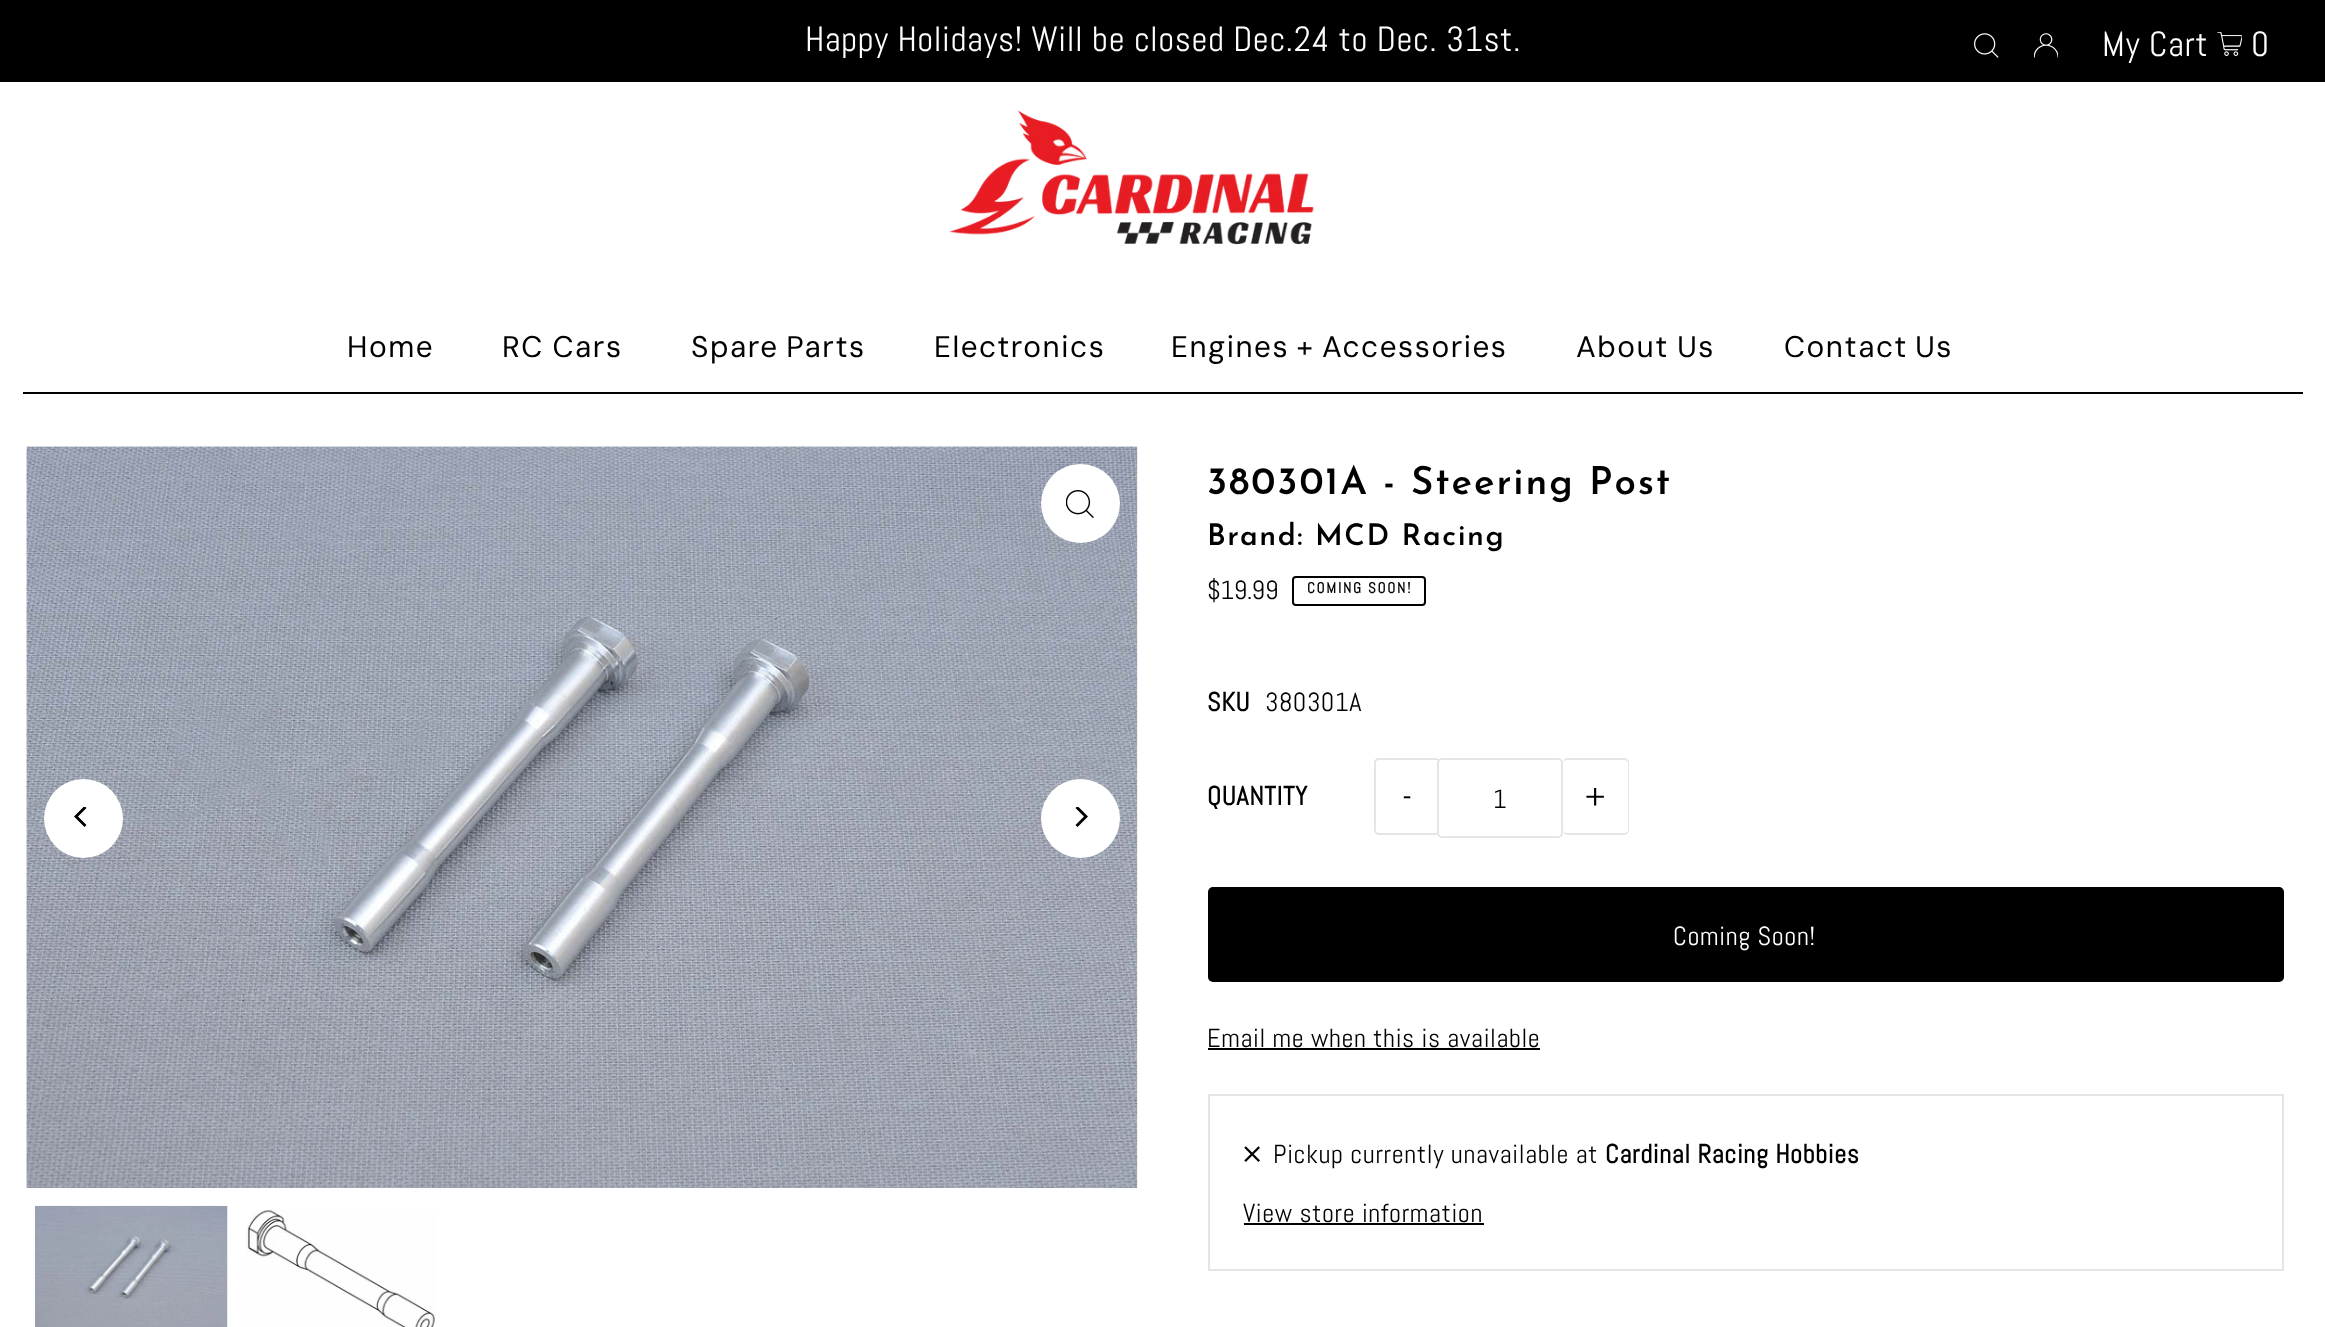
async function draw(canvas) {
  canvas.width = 2325;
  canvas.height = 1327;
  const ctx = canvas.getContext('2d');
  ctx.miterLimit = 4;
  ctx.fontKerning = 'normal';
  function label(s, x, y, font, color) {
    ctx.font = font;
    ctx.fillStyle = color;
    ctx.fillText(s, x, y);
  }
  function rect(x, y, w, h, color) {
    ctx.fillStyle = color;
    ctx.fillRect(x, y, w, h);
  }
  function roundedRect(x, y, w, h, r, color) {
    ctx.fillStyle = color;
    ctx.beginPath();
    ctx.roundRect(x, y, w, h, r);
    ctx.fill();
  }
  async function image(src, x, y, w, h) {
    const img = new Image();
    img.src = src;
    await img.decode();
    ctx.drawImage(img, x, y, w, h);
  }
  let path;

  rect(0, 0, 2325, 1327, '#fff');
  rect(0, 0, 2325, 82, '#000');
  ctx.letterSpacing = '0.65px';
  label('Happy Holidays! Will be closed Dec.24 to Dec. 31st.', 805, 51, '35px Abel', '#fff');
  await image('assets/img1.png', 1974, 33, 25, 25);
  await image('assets/img2.png', 2034, 33, 24, 25);
  ctx.letterSpacing = '0.75px';
  label('My Cart', 2102, 56, '35px Abel', '#fff');
  await image('assets/img3.png', 2217, 32, 25, 24);
  label('0', 2251, 56, '35px Abel', '#fff');
  rect(23, 392, 2280, 2, '#000');
  await image('assets/img4.png', 949, 110, 365, 135);
  ctx.letterSpacing = '1.5px';
  label('Home', 347, 357, '29.75px DM Sans', '#000');
  ctx.wordSpacing = '-1px';
  label('RC Cars', 502, 357, '29.75px DM Sans', '#000');
  ctx.wordSpacing = '-2px';
  label('Spare Parts', 691, 357, '29.75px DM Sans', '#000');
  ctx.wordSpacing = '0px';
  label('Electronics', 934, 357, '29.75px DM Sans', '#000');
  ctx.wordSpacing = '-2px';
  label('Engines + Accessories', 1171, 357, '29.75px DM Sans', '#000');
  ctx.wordSpacing = '-1px';
  label('About Us', 1576, 357, '29.75px DM Sans', '#000');
  ctx.wordSpacing = '-2px';
  label('Contact Us', 1784, 357, '29.75px DM Sans', '#000');
  await image('assets/img5.png', 26, 446, 1112, 742);
  ctx.fillStyle = '#fff';
  ctx.beginPath();
  ctx.arc(1080.5, 503.5, 39.5, 0, 2 * Math.PI);
  ctx.fill();
  await image('assets/img6.png', 1066, 490, 28, 28);
  ctx.beginPath();
  ctx.arc(83.5, 818.5, 39.5, 0, 2 * Math.PI);
  ctx.fill();
  ctx.save();
  ctx.beginPath();
  ctx.rect(72, 807, 21, 21);
  ctx.clip();
  ctx.fillStyle = '#000';
  path = new Path2D('M74 816.5L84.5 827L86.5 825L78 816.5L86.5 808L84.5 806Z');
  ctx.fill(path);
  ctx.restore();
  ctx.beginPath();
  ctx.arc(1080.5, 818.5, 39.5, 0, 2 * Math.PI);
  ctx.fill();
  ctx.save();
  ctx.beginPath();
  ctx.rect(1069, 807, 21, 21);
  ctx.clip();
  ctx.fillStyle = '#000';
  path = new Path2D('M1088 816.5L1077.5 806L1075.5 808L1084 816.5L1075.5 825L1077.5 827Z');
  ctx.fill(path);
  ctx.restore();
  await image('assets/img7.png', 35, 1205, 193, 122);
  await image('assets/img8.png', 245, 1209, 191, 118);
  ctx.letterSpacing = '1.9px';
  ctx.wordSpacing = '0px';
  label('380301A - Steering Post', 1207, 494, '600 38.5px Josefin Sans', '#000');
  ctx.letterSpacing = '1.5px';
  label('Brand: MCD Racing', 1207, 545, '600 29.75px Josefin Sans', '#000');
  ctx.letterSpacing = '0px';
  label('$19.99', 1207, 599, '26.25px Abel', '#000');
  ctx.beginPath();
  ctx.roundRect(1293, 577, 132, 28, 3);
  ctx.strokeStyle = '#000';
  ctx.lineWidth = 2;
  ctx.stroke();
  ctx.letterSpacing = '1.75px';
  label('COMING SOON!', 1307, 593, 'bold 15px Abel', '#000');
  ctx.letterSpacing = '0.65px';
  label('SKU', 1207, 711, 'bold 26.25px Abel', '#000');
  label('380301A', 1265, 711, '26.25px Abel', '#000');
  label('QUANTITY', 1207, 805, 'bold 26.25px Abel', '#000');
  ctx.fillStyle = '#e5e5e5';
  path = new Path2D('M1379 758H1435C1438 758 1440 760 1440 763V830C1440 832 1438 835 1435 835H1379C1376 835 1374 832 1374 830V763C1374 760 1376 758 1379 758ZM1379 760H1435C1438 760 1440 761 1440 763V830C1440 831 1438 833 1435 833H1379C1377 833 1376 831 1376 830V763C1376 761 1377 760 1379 760Z');
  ctx.fill(path, 'evenodd');
  ctx.letterSpacing = '1px';
  label('-', 1402, 809, '35px Abel', '#000');
  ctx.fillStyle = '#fff';
  ctx.beginPath();
  ctx.roundRect(1438, 759, 124, 78, 4);
  ctx.fill();
  ctx.strokeStyle = '#e5e5e5';
  ctx.stroke();
  ctx.letterSpacing = '0.65px';
  label('1', 1493, 808, '26.25px Abel', '#000');
  ctx.fillStyle = '#e5e5e5';
  path = new Path2D('M1568 758H1624C1627 758 1629 760 1629 763V830C1629 832 1627 835 1624 835H1568C1565 835 1563 832 1563 830V763C1563 760 1565 758 1568 758ZM1568 760H1624C1626 760 1628 761 1628 763V830C1628 831 1626 833 1624 833H1568C1565 833 1563 831 1563 830V763C1563 761 1565 760 1568 760Z');
  ctx.fill(path, 'evenodd');
  ctx.letterSpacing = '1px';
  label('+', 1585, 809, '35px Abel', '#000');
  roundedRect(1208, 887, 1076, 95, 5, '#000');
  ctx.letterSpacing = '0.65px';
  label('Coming Soon!', 1673, 945, '26.25px Abel', '#fff');
  label('Email me when this is available', 1207, 1047, '26.25px Abel', '#000');
  rect(1208, 1048, 332, 2, '#000');
  ctx.strokeRect(1209, 1095, 1074, 175);
  await image('assets/img9.png', 1244, 1146, 16, 16);
  label('Pickup currently unavailable at', 1273, 1163, '26.25px Abel', '#000');
  label('Cardinal Racing Hobbies', 1605, 1163, 'bold 26.25px Abel', '#000');
  label('View store information', 1243, 1222, '26.25px Abel', '#000');
  rect(1244, 1223, 240, 2, '#000');
}

draw(document.querySelector('canvas'));
